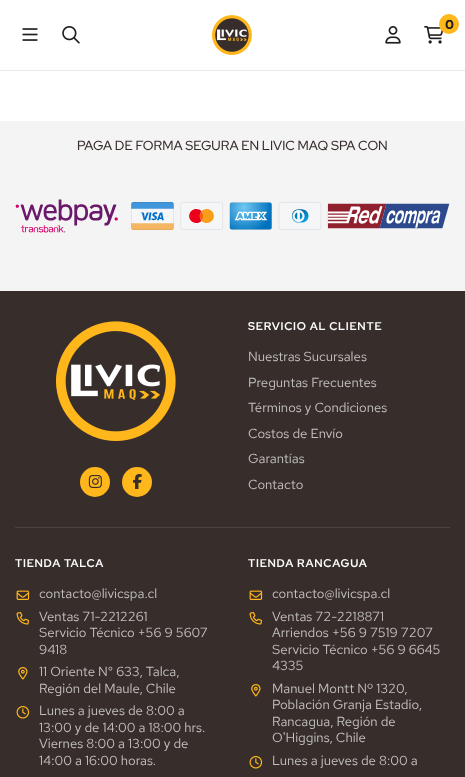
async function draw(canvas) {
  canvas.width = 465;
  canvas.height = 777;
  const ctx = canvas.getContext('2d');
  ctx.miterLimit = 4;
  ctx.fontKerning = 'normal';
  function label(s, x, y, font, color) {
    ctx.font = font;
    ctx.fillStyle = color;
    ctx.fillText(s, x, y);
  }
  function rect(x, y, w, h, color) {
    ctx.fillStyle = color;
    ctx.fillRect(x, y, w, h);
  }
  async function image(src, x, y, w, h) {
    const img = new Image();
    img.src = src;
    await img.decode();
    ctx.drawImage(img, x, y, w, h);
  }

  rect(0, 0, 465, 777, '#fff');
  rect(0, 70, 465, 1, '#e9e9e9');
  await image('assets/img1.png', 212, 15, 40, 40);
  await image('assets/img2.png', 424, 26, 19, 18);
  ctx.fillStyle = '#ffb71b';
  ctx.beginPath();
  ctx.arc(449, 24, 10, 0, 2 * Math.PI);
  ctx.fill();
  label('0', 445, 29, 'bold 13px Red Hat Text', '#201e1e');
  await image('assets/img3.png', 385, 26, 16, 18);
  await image('assets/img4.png', 22, 28, 16, 13);
  await image('assets/img5.png', 62, 26, 18, 18);
  rect(0, 291, 465, 486, '#372e2c');
  rect(0, 121, 465, 170, '#f4f4f4');
  label('PAGA DE FORMA SEGURA EN LIVIC MAQ SPA CON', 77, 150, '500 13.2px Red Hat Display', '#372e2c');
  await image('assets/img6.png', 15, 199, 435, 34);
  await image('assets/img7.png', 56, 321, 120, 120);
  ctx.fillStyle = '#ffb71b';
  ctx.beginPath();
  ctx.arc(95, 482, 15, 0, 2 * Math.PI);
  ctx.fill();
  await image('assets/img8.png', 88, 475, 14, 13);
  ctx.beginPath();
  ctx.arc(137, 482, 15, 0, 2 * Math.PI);
  ctx.fill();
  await image('assets/img9.png', 133, 474, 9, 15);
  ctx.letterSpacing = '0.75px';
  label('SERVICIO AL CLIENTE', 248, 330, 'bold 11.25px Red Hat Display', '#fff');
  ctx.letterSpacing = '0px';
  label('Nuestras Sucursales', 248, 361, '13.2px Red Hat Text', '#c3c0c0');
  label('Preguntas Frecuentes', 248, 387, '13.2px Red Hat Text', '#c3c0c0');
  label('Términos y Condiciones', 248, 412, '13.2px Red Hat Text', '#c3c0c0');
  label('Costos de Envío', 248, 438, '13.2px Red Hat Text', '#c3c0c0');
  label('Garantías', 248, 463, '13.2px Red Hat Text', '#c3c0c0');
  label('Contacto', 248, 489, '13.2px Red Hat Text', '#c3c0c0');
  rect(15, 527, 435, 1, '#4b4341');
  ctx.letterSpacing = '0.75px';
  label('TIENDA TALCA', 15, 567, 'bold 11.25px Red Hat Display', '#fff');
  await image('assets/img10.png', 16, 590, 14, 10);
  ctx.letterSpacing = '0px';
  label('contacto@livicspa.cl', 39, 598, '13.2px Red Hat Text', '#c3c0c0');
  await image('assets/img11.png', 16, 612, 14, 13);
  label('Ventas 71-2212261', 39, 621, '13.2px Red Hat Text', '#c3c0c0');
  label('Servicio Técnico +56 9 5607', 39, 637, '13.2px Red Hat Text', '#c3c0c0');
  label('9418', 39, 654, '13.2px Red Hat Text', '#c3c0c0');
  await image('assets/img12.png', 18, 667, 10, 13);
  label('11 Oriente N° 633, Talca,', 39, 676, '13.2px Red Hat Text', '#c3c0c0');
  label('Región del Maule, Chile', 39, 693, '13.2px Red Hat Text', '#c3c0c0');
  await image('assets/img13.png', 16, 706, 14, 13);
  label('Lunes a jueves de 8:00 a', 39, 715, '13.2px Red Hat Text', '#c3c0c0');
  label('13:00 y de 14:00 a 18:00 hrs.', 39, 732, '13.2px Red Hat Text', '#c3c0c0');
  label('Viernes 8:00 a 13:00 y de', 39, 748, '13.2px Red Hat Text', '#c3c0c0');
  label('14:00 a 16:00 horas.', 39, 765, '13.2px Red Hat Text', '#c3c0c0');
  ctx.letterSpacing = '0.75px';
  label('TIENDA RANCAGUA', 248, 567, 'bold 11.25px Red Hat Display', '#fff');
  await image('assets/img10.png', 249, 590, 14, 10);
  ctx.letterSpacing = '0px';
  label('contacto@livicspa.cl', 272, 598, '13.2px Red Hat Text', '#c3c0c0');
  await image('assets/img11.png', 249, 612, 14, 13);
  label('Ventas 72-2218871', 272, 621, '13.2px Red Hat Text', '#c3c0c0');
  label('Arriendos +56 9 7519 7207', 272, 637, '13.2px Red Hat Text', '#c3c0c0');
  label('Servicio Técnico +56 9 6645', 272, 654, '13.2px Red Hat Text', '#c3c0c0');
  label('4335', 272, 670, '13.2px Red Hat Text', '#c3c0c0');
  await image('assets/img12.png', 251, 684, 10, 13);
  label('Manuel Montt Nº 1320,', 272, 693, '13.2px Red Hat Text', '#c3c0c0');
  label('Población Granja Estadio,', 272, 709, '13.2px Red Hat Text', '#c3c0c0');
  label('Rancagua, Región de', 272, 726, '13.2px Red Hat Text', '#c3c0c0');
  label('O\'Higgins, Chile', 272, 742, '13.2px Red Hat Text', '#c3c0c0');
  await image('assets/img13.png', 249, 756, 14, 13);
  label('Lunes a jueves de 8:00 a', 272, 765, '13.2px Red Hat Text', '#c3c0c0');
}

draw(document.querySelector('canvas'));
